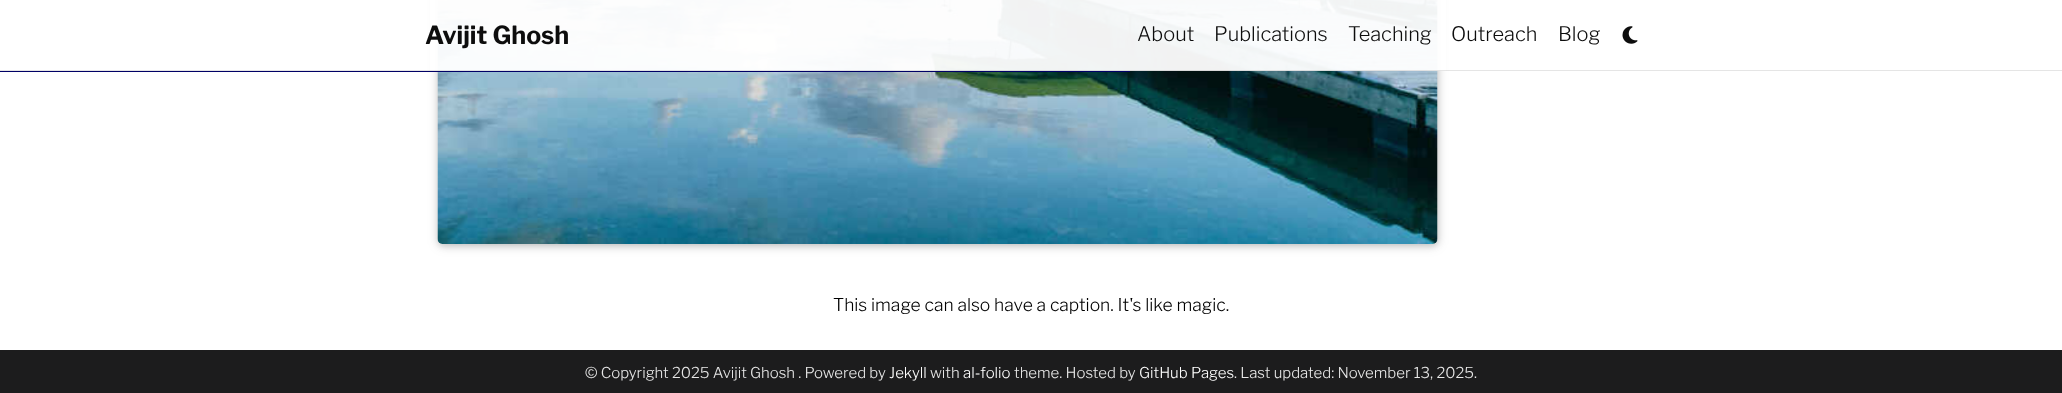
async function draw(canvas) {
  canvas.width = 2062;
  canvas.height = 393;
  const ctx = canvas.getContext('2d');
  ctx.miterLimit = 4;
  ctx.fontKerning = 'normal';
  function label(s, x, y, font, color) {
    ctx.font = font;
    ctx.fillStyle = color;
    ctx.fillText(s, x, y);
  }
  function rect(x, y, w, h, color) {
    ctx.fillStyle = color;
    ctx.fillRect(x, y, w, h);
  }
  async function image(src, x, y, w, h) {
    const img = new Image();
    img.src = src;
    await img.decode();
    ctx.drawImage(img, x, y, w, h);
  }

  rect(0, 0, 2062, 393, '#fff');
  ctx.fillStyle = '#0000001f';
  ctx.filter = 'blur(6px)';
  ctx.beginPath();
  ctx.roundRect(438, -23, 1000, 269, 5);
  ctx.fill();
  ctx.filter = 'none';
  ctx.fillStyle = '#00000029';
  ctx.filter = 'blur(3px)';
  ctx.beginPath();
  ctx.roundRect(438, -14, 1000, 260, 5);
  ctx.fill();
  ctx.filter = 'none';
  await image('assets/img2.png', 437, 0, 1001, 244);
  rect(430, 0, 1016, 71, '#fffffff2');
  rect(0, 70, 2062, 1, '#0000001a');
  label('Avijit Ghosh', 425, 44, 'bold 25px Libre Franklin', '#0d0d0d');
  label('About', 1137, 41, '300 20px Libre Franklin', '#0d0d0d');
  label('Publications', 1214, 41, '300 20px Libre Franklin', '#0d0d0d');
  label('Teaching', 1348, 41, '300 20px Libre Franklin', '#0d0d0d');
  label('Outreach', 1451, 41, '300 20px Libre Franklin', '#0d0d0d');
  label('Blog', 1558, 41, '300 20px Libre Franklin', '#0d0d0d');
  await image('assets/img1.png', 1622, 26, 16, 18);
  rect(0, 71, 1130, 1, '#006');
  label('This image can also have a caption. It\'s like magic.', 833, 311, '300 17.5px Libre Franklin', '#000');
  rect(0, 350, 2062, 43, '#1c1c1d');
  label('© Copyright 2025 Avijit Ghosh . Powered by', 585, 378, '300 15px Libre Franklin', '#e8e8e8');
  label('Jekyll', 889, 378, '300 15px Libre Franklin', '#fff');
  label('with', 930, 378, '300 15px Libre Franklin', '#e8e8e8');
  label('al-folio', 963, 378, '300 15px Libre Franklin', '#fff');
  label('theme. Hosted by', 1014, 378, '300 15px Libre Franklin', '#e8e8e8');
  label('GitHub Pages', 1139, 378, '300 15px Libre Franklin', '#fff');
  label('. Last updated: November 13, 2025.', 1234, 378, '300 15px Libre Franklin', '#e8e8e8');
}

draw(document.querySelector('canvas'));
